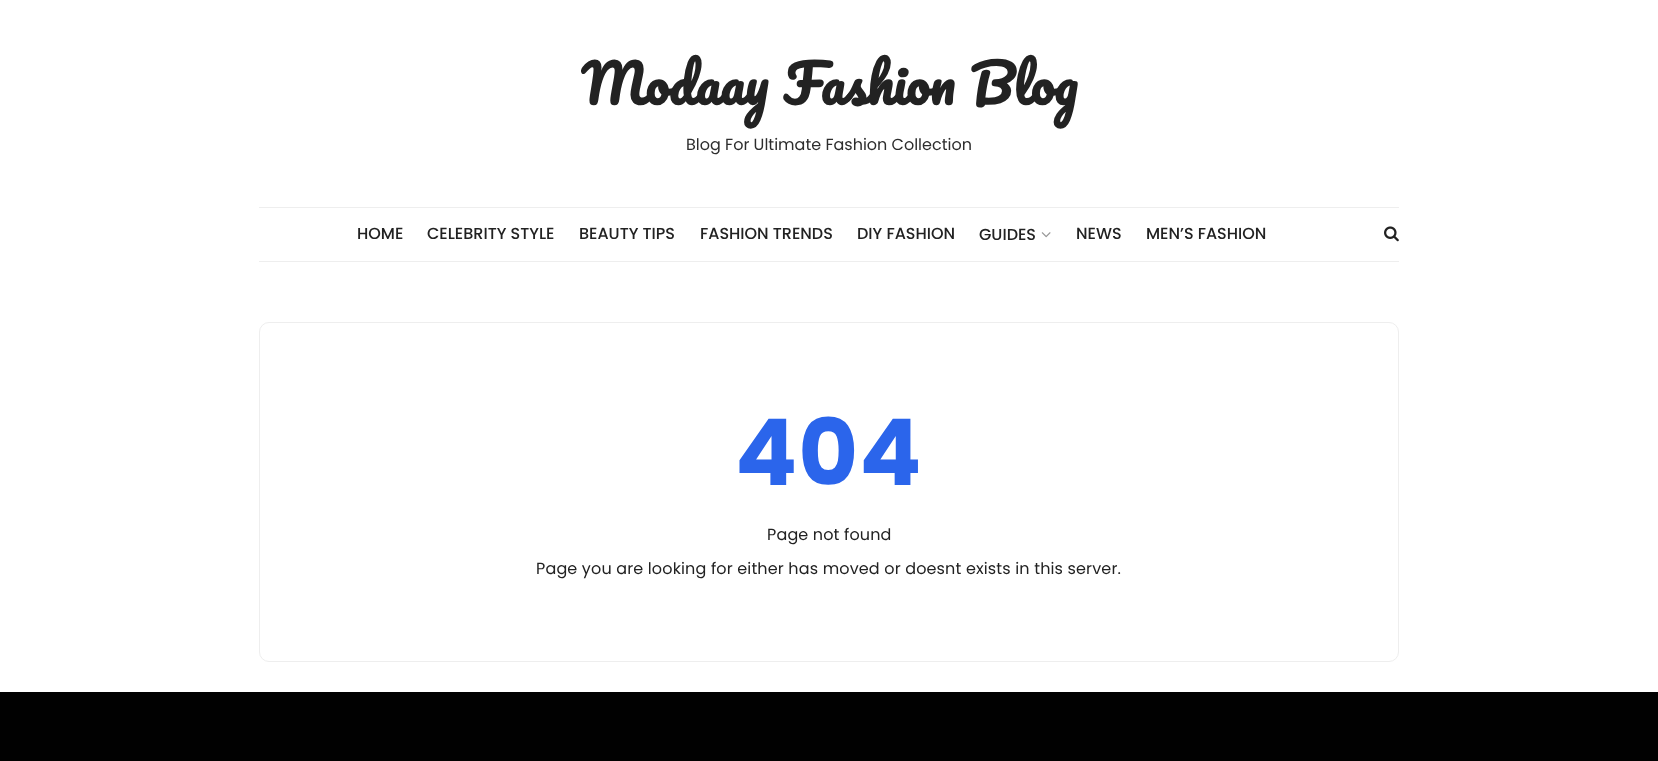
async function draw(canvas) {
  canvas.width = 1658;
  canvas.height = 761;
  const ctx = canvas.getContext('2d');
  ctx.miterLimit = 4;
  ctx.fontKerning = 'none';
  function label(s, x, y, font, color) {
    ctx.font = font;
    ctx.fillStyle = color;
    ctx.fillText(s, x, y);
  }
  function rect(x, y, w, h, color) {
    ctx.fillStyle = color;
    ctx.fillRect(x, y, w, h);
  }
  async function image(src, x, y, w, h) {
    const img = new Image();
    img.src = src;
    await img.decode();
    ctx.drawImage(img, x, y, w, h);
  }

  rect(0, 0, 1658, 761, '#fff');
  ctx.wordSpacing = '2px';
  label('Modaay Fashion Blog', 581, 105, 'bold 52px Pacifico', '#222');
  ctx.wordSpacing = '0px';
  label('Blog For Ultimate Fashion Collection', 686, 150, '16px Poppins', '#2d2d2d');
  rect(259, 207, 1140, 1, '#eee');
  rect(259, 261, 1140, 1, '#eee');
  label('HOME', 357, 239, '500 16px Poppins', '#222');
  label('CELEBRITY STYLE', 427, 239, '500 16px Poppins', '#222');
  label('BEAUTY TIPS', 579, 239, '500 16px Poppins', '#222');
  label('FASHION TRENDS', 700, 239, '500 16px Poppins', '#222');
  label('DIY FASHION', 857, 239, '500 16px Poppins', '#222');
  label('GUIDES', 979, 240, '500 16px Poppins', '#222');
  await image('assets/img1.png', 1041, 232, 10, 6);
  label('NEWS', 1076, 239, '500 16px Poppins', '#222');
  label('MEN’S FASHION', 1146, 239, '500 16px Poppins', '#222');
  await image('assets/img2.png', 1384, 226, 15, 16);
  ctx.beginPath();
  ctx.roundRect(259.5, 322.5, 1139, 339, 9.5);
  ctx.strokeStyle = '#eee';
  ctx.stroke();
  ctx.letterSpacing = '1px';
  label('404', 735, 485, 'bold 92px Poppins', '#2b65eb');
  ctx.letterSpacing = '0.15px';
  label('Page not found', 767, 540, '16px Poppins', '#222');
  label('Page you are looking for either has moved or doesnt exists in this server.', 536, 574, '16px Poppins', '#222');
  rect(0, 692, 1658, 69, '#010101');
}

draw(document.querySelector('canvas'));
